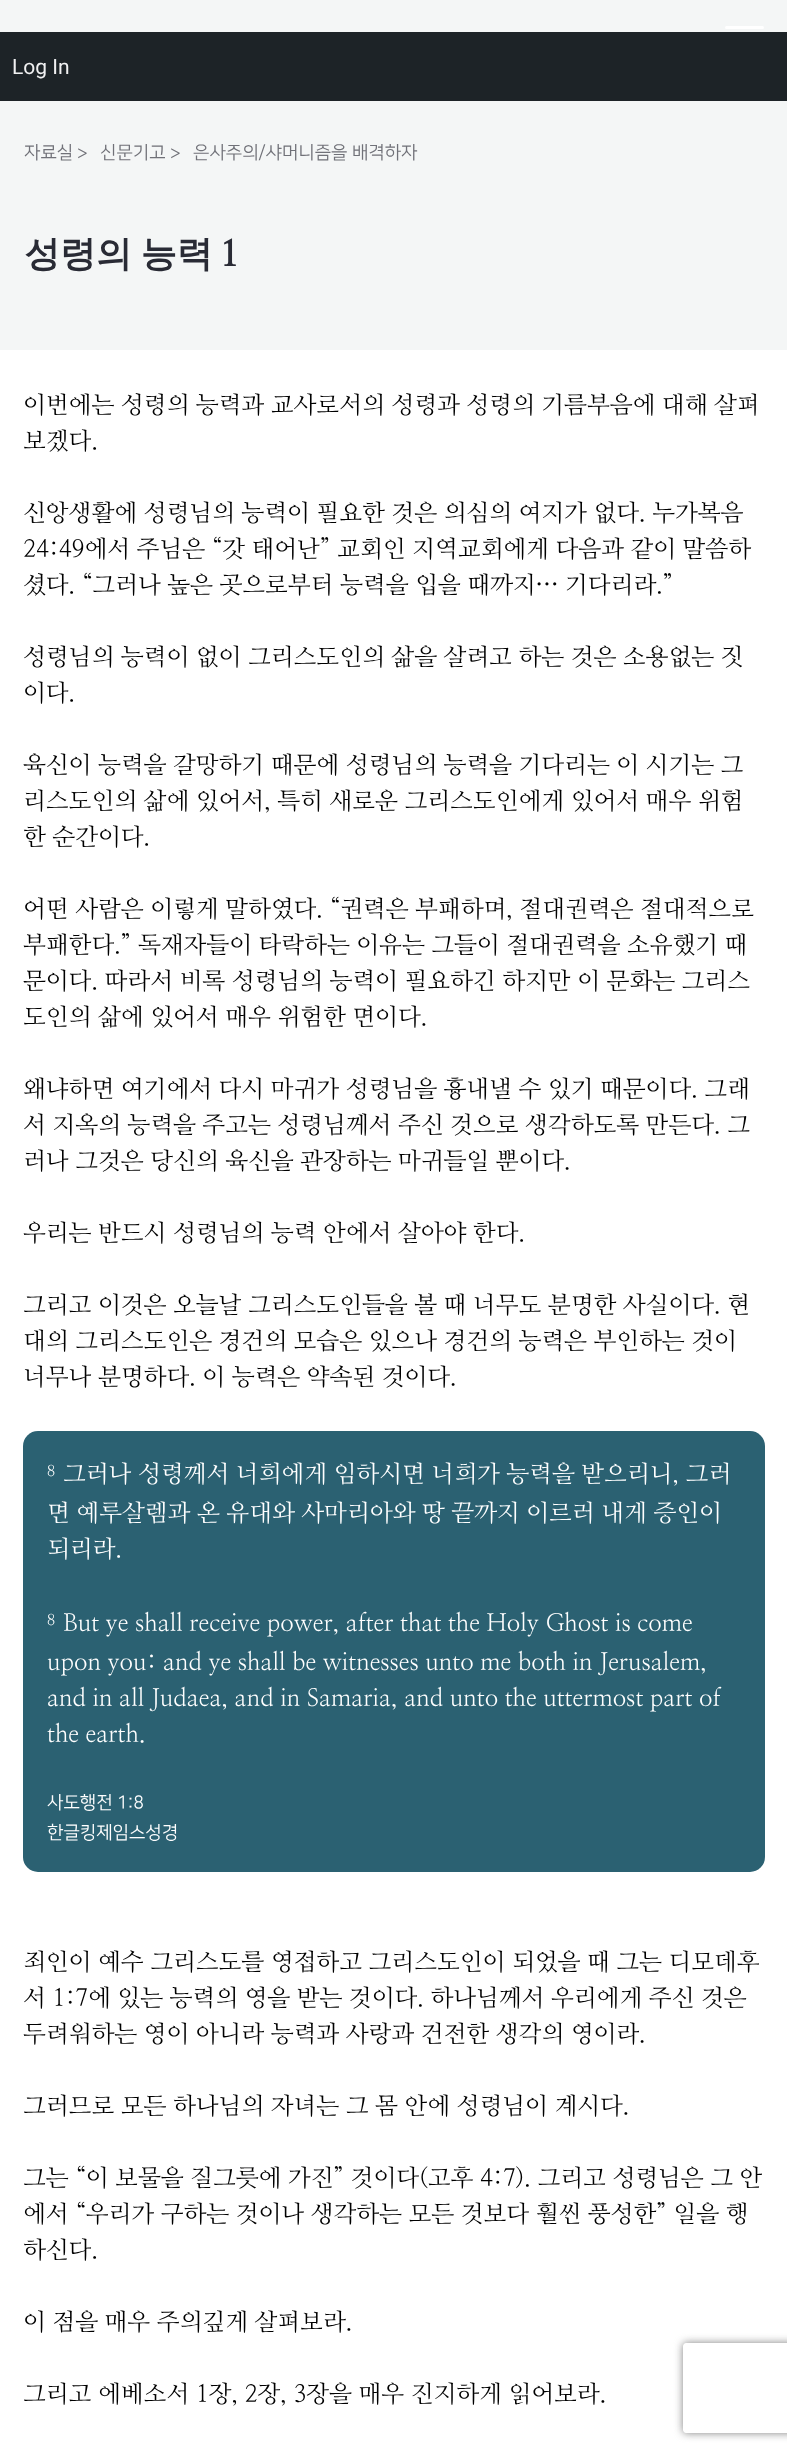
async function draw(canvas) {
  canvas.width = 787;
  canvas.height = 2453;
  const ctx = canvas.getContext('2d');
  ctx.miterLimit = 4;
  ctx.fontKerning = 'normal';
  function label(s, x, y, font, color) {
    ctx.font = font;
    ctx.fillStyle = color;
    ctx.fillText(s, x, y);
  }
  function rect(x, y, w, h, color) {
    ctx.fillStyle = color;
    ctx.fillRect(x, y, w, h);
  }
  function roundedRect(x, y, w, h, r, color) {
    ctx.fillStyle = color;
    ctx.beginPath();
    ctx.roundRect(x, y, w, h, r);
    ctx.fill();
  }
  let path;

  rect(0, 0, 787, 2453, '#fff');
  rect(0, 32, 787, 69, '#1d2327');
  label('Log In', 12, 74, '21px Roboto', '#f0f0f1');
  rect(0, 101, 787, 249, '#f4f6f6');
  rect(0, 0, 787, 32, '#f4f6f6');
  roundedRect(725, 26, 39, 3, 1.5, '#fff');
  label('자료실', 24, 158, '18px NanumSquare', '#707178');
  label('>', 77, 159, '18px NanumSquare', '#707178');
  label('신문기고', 100, 158, '18px NanumSquare', '#707178');
  label('>', 170, 159, '18px NanumSquare', '#707178');
  label('은사주의/샤머니즘을 배격하자', 193, 158, '18px NanumSquare', '#707178');
  ctx.wordSpacing = '-2px';
  label('성령의 능력', 24, 266, 'bold 36px WenQuanYi Zen Hei', '#292b35');
  ctx.wordSpacing = '0px';
  label('1', 220, 266, '800 36px NanumMyeongjo', '#292b35');
  label('이번에는 성령의 능력과 교사로서의 성령과 성령의 기름부음에 대해 살펴', 23, 413, '24px NanumMyeongjo', '#000');
  label('보겠다.', 23, 449, '24px NanumMyeongjo', '#000');
  label('신앙생활에 성령님의 능력이 필요한 것은 의심의 여지가 없다. 누가복음', 23, 521, '24px NanumMyeongjo', '#000');
  label('24:49에서 주님은 “갓 태어난” 교회인 지역교회에게 다음과 같이 말씀하', 23, 557, '24px NanumMyeongjo', '#000');
  label('셨다. “그러나 높은 곳으로부터 능력을 입을 때까지… 기다리라.”', 23, 593, '24px NanumMyeongjo', '#000');
  label('성령님의 능력이 없이 그리스도인의 삶을 살려고 하는 것은 소용없는 짓', 23, 665, '24px NanumMyeongjo', '#000');
  label('이다.', 23, 701, '24px NanumMyeongjo', '#000');
  label('육신이 능력을 갈망하기 때문에 성령님의 능력을 기다리는 이 시기는 그', 23, 773, '24px NanumMyeongjo', '#000');
  label('리스도인의 삶에 있어서, 특히 새로운 그리스도인에게 있어서 매우 위험', 23, 809, '24px NanumMyeongjo', '#000');
  label('한 순간이다.', 23, 845, '24px NanumMyeongjo', '#000');
  label('어떤 사람은 이렇게 말하였다. “권력은 부패하며, 절대권력은 절대적으로', 23, 917, '24px NanumMyeongjo', '#000');
  label('부패한다.” 독재자들이 타락하는 이유는 그들이 절대권력을 소유했기 때', 23, 953, '24px NanumMyeongjo', '#000');
  label('문이다. 따라서 비록 성령님의 능력이 필요하긴 하지만 이 문화는 그리스', 23, 989, '24px NanumMyeongjo', '#000');
  label('도인의 삶에 있어서 매우 위험한 면이다.', 23, 1025, '24px NanumMyeongjo', '#000');
  label('왜냐하면 여기에서 다시 마귀가 성령님을 흉내낼 수 있기 때문이다. 그래', 23, 1097, '24px NanumMyeongjo', '#000');
  label('서 지옥의 능력을 주고는 성령님께서 주신 것으로 생각하도록 만든다. 그', 23, 1133, '24px NanumMyeongjo', '#000');
  label('러나 그것은 당신의 육신을 관장하는 마귀들일 뿐이다.', 23, 1169, '24px NanumMyeongjo', '#000');
  label('우리는 반드시 성령님의 능력 안에서 살아야 한다.', 23, 1241, '24px NanumMyeongjo', '#000');
  label('그리고 이것은 오늘날 그리스도인들을 볼 때 너무도 분명한 사실이다. 현', 23, 1313, '24px NanumMyeongjo', '#000');
  label('대의 그리스도인은 경건의 모습은 있으나 경건의 능력은 부인하는 것이', 23, 1349, '24px NanumMyeongjo', '#000');
  label('너무나 분명하다. 이 능력은 약속된 것이다.', 23, 1385, '24px NanumMyeongjo', '#000');
  roundedRect(23, 1431, 742, 441, 15, '#2b6172');
  label('8', 47, 1476, '15px NanumMyeongjo', '#fff');
  label('그러나 성령께서 너희에게 임하시면 너희가 능력을 받으리니, 그러', 63, 1482, '24px NanumMyeongjo', '#fff');
  label('면 예루살렘과 온 유대와 사마리아와 땅 끝까지 이르러 내게 증인이', 47, 1521, '24px NanumMyeongjo', '#fff');
  label('되리라.', 47, 1557, '24px NanumMyeongjo', '#fff');
  label('8', 47, 1625, '15px NanumMyeongjo', '#fff');
  label('But ye shall receive power, after that the Holy Ghost is come', 63, 1631, '24px NanumMyeongjo', '#fff');
  label('upon you: and ye shall be witnesses unto me both in Jerusalem,', 47, 1670, '24px NanumMyeongjo', '#fff');
  label('and in all Judaea, and in Samaria, and unto the uttermost part of', 47, 1706, '24px NanumMyeongjo', '#fff');
  label('the earth.', 47, 1742, '24px NanumMyeongjo', '#fff');
  label('사도행전 1:8', 47, 1808, '18px NanumSquare', '#fff');
  label('한글킹제임스성경', 47, 1838, '18px NanumSquare', '#fff');
  label('죄인이 예수 그리스도를 영접하고 그리스도인이 되었을 때 그는 디모데후', 23, 1970, '24px NanumMyeongjo', '#000');
  label('서 1:7에 있는 능력의 영을 받는 것이다. 하나님께서 우리에게 주신 것은', 23, 2006, '24px NanumMyeongjo', '#000');
  label('두려워하는 영이 아니라 능력과 사랑과 건전한 생각의 영이라.', 23, 2042, '24px NanumMyeongjo', '#000');
  label('그러므로 모든 하나님의 자녀는 그 몸 안에 성령님이 계시다.', 23, 2114, '24px NanumMyeongjo', '#000');
  label('그는 “이 보물을 질그릇에 가진” 것이다(고후 4:7). 그리고 성령님은 그 안', 23, 2186, '24px NanumMyeongjo', '#000');
  label('에서 “우리가 구하는 것이나 생각하는 모든 것보다 훨씬 풍성한” 일을 행', 23, 2222, '24px NanumMyeongjo', '#000');
  label('하신다.', 23, 2258, '24px NanumMyeongjo', '#000');
  label('이 점을 매우 주의깊게 살펴보라.', 23, 2330, '24px NanumMyeongjo', '#000');
  label('그리고 에베소서 1장, 2장, 3장을 매우 진지하게 읽어보라.', 23, 2402, '24px NanumMyeongjo', '#000');
  ctx.save();
  path = new Path2D('M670 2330H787V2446H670ZM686 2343H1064C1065.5 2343 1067 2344.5 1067 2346V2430C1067 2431.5 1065.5 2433 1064 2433H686C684.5 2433 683 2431.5 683 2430V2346C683 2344.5 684.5 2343 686 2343Z');
  ctx.clip(path, 'evenodd');
  ctx.fillStyle = '#808080';
  ctx.filter = 'blur(4px)';
  ctx.beginPath();
  ctx.roundRect(683, 2343, 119, 90, 3);
  ctx.fill();
  ctx.filter = 'none';
  ctx.restore();
}

draw(document.querySelector('canvas'));
